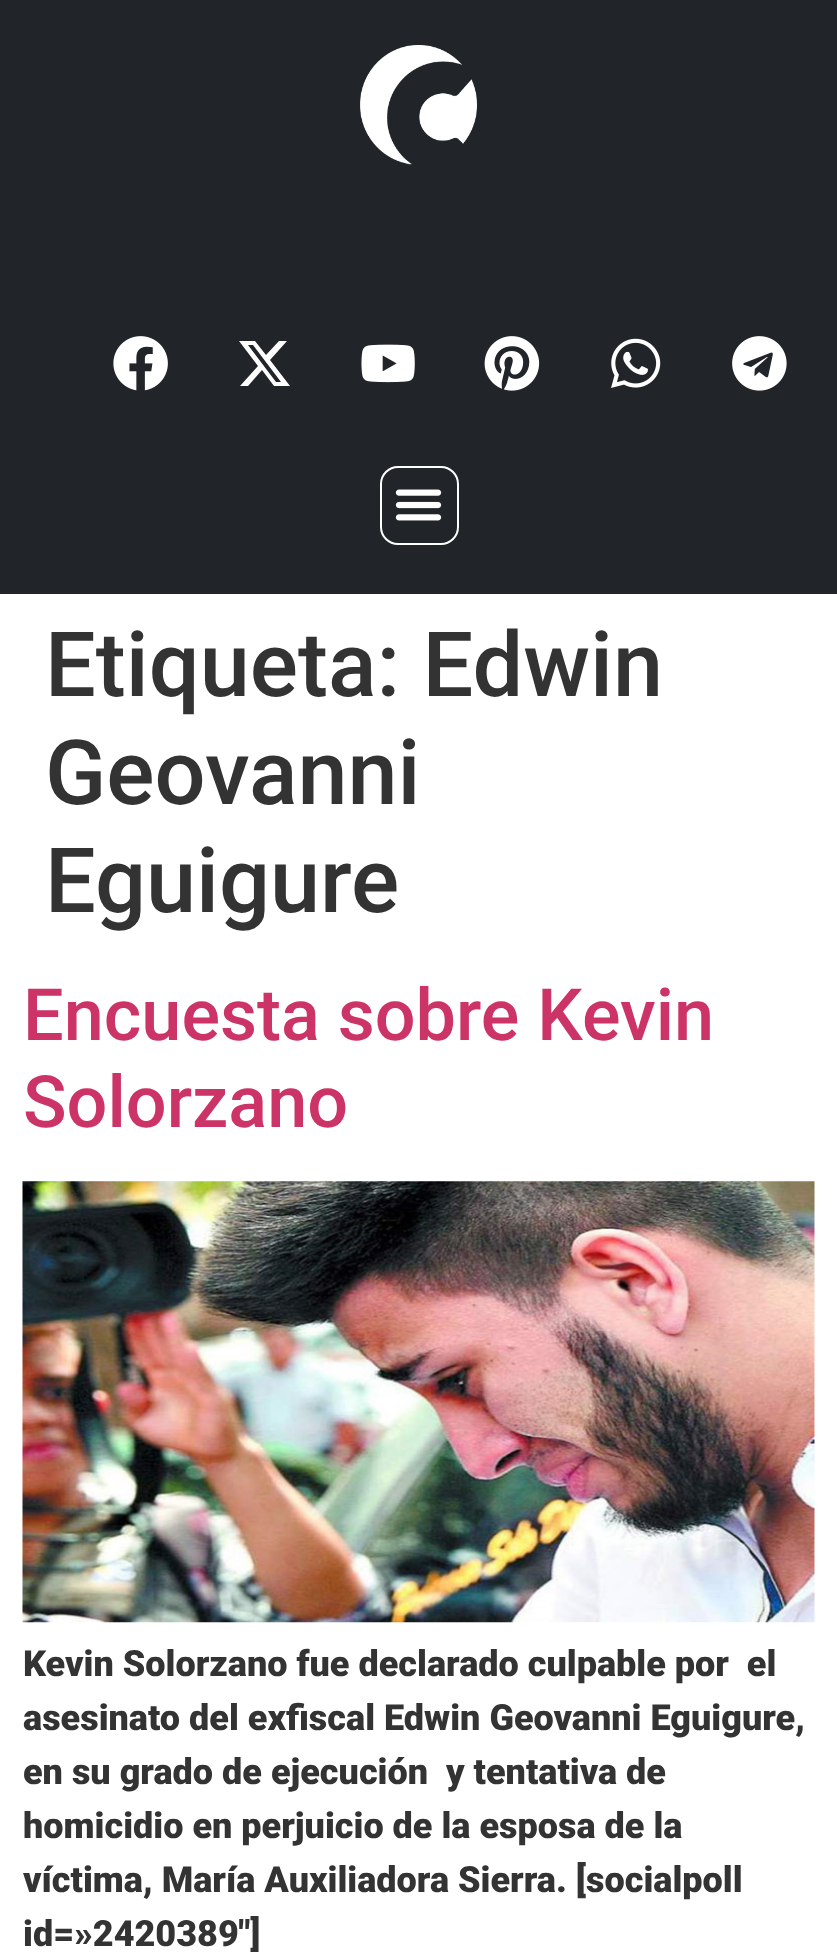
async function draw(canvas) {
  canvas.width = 837;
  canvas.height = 1952;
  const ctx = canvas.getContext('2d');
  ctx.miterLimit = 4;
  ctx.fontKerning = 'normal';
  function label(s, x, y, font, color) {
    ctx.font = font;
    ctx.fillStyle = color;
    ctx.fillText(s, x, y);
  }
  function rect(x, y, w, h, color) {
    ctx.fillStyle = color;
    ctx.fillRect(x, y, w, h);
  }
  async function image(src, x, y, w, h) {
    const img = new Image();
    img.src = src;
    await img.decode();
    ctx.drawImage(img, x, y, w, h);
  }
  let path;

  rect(0, 0, 837, 1952, '#fff');
  rect(0, 0, 837, 594, '#212529');
  await image('assets/img1.png', 360, 45, 117, 120);
  await image('assets/img2.png', 113, 336, 55, 55);
  ctx.fillStyle = '#fff';
  path = new Path2D('M279 341H287L270 360L290 386H274L262 370L248 386H240L258 366L239 341H255L266 355ZM276 382H281L253 345H248Z');
  ctx.fill(path);
  await image('assets/img3.png', 361, 344, 54, 39);
  await image('assets/img4.png', 484, 336, 56, 55);
  await image('assets/img5.png', 611, 338, 50, 50);
  await image('assets/img6.png', 732, 336, 55, 55);
  ctx.beginPath();
  ctx.roundRect(381, 467, 77, 77, 17);
  ctx.strokeStyle = '#fff';
  ctx.lineWidth = 2;
  ctx.stroke();
  await image('assets/img7.png', 395, 489, 47, 32);
  label('Etiqueta: Edwin', 45, 696, '500 90px Roboto', '#333');
  label('Geovanni', 45, 804, '500 90px Roboto', '#333');
  label('Eguigure', 45, 912, '500 90px Roboto', '#333');
  label('Encuesta sobre Kevin', 23, 1040, '500 72px Roboto', '#c36');
  label('Solorzano', 23, 1127, '500 72px Roboto', '#c36');
  await image('assets/img8.png', 22, 1181, 793, 442);
  label('Kevin Solorzano fue declarado culpable por  el', 23, 1676, '900 36px Roboto', '#333');
  label('asesinato del exfiscal Edwin Geovanni Eguigure,', 23, 1730, '900 36px Roboto', '#333');
  label('en su grado de ejecución  y tentativa de', 23, 1784, '900 36px Roboto', '#333');
  label('homicidio en perjuicio de la esposa de la', 23, 1838, '900 36px Roboto', '#333');
  label('víctima, María Auxiliadora Sierra. [socialpoll', 23, 1892, '900 36px Roboto', '#333');
  label('id=»2420389″]', 23, 1946, '900 36px Roboto', '#333');
}

draw(document.querySelector('canvas'));
